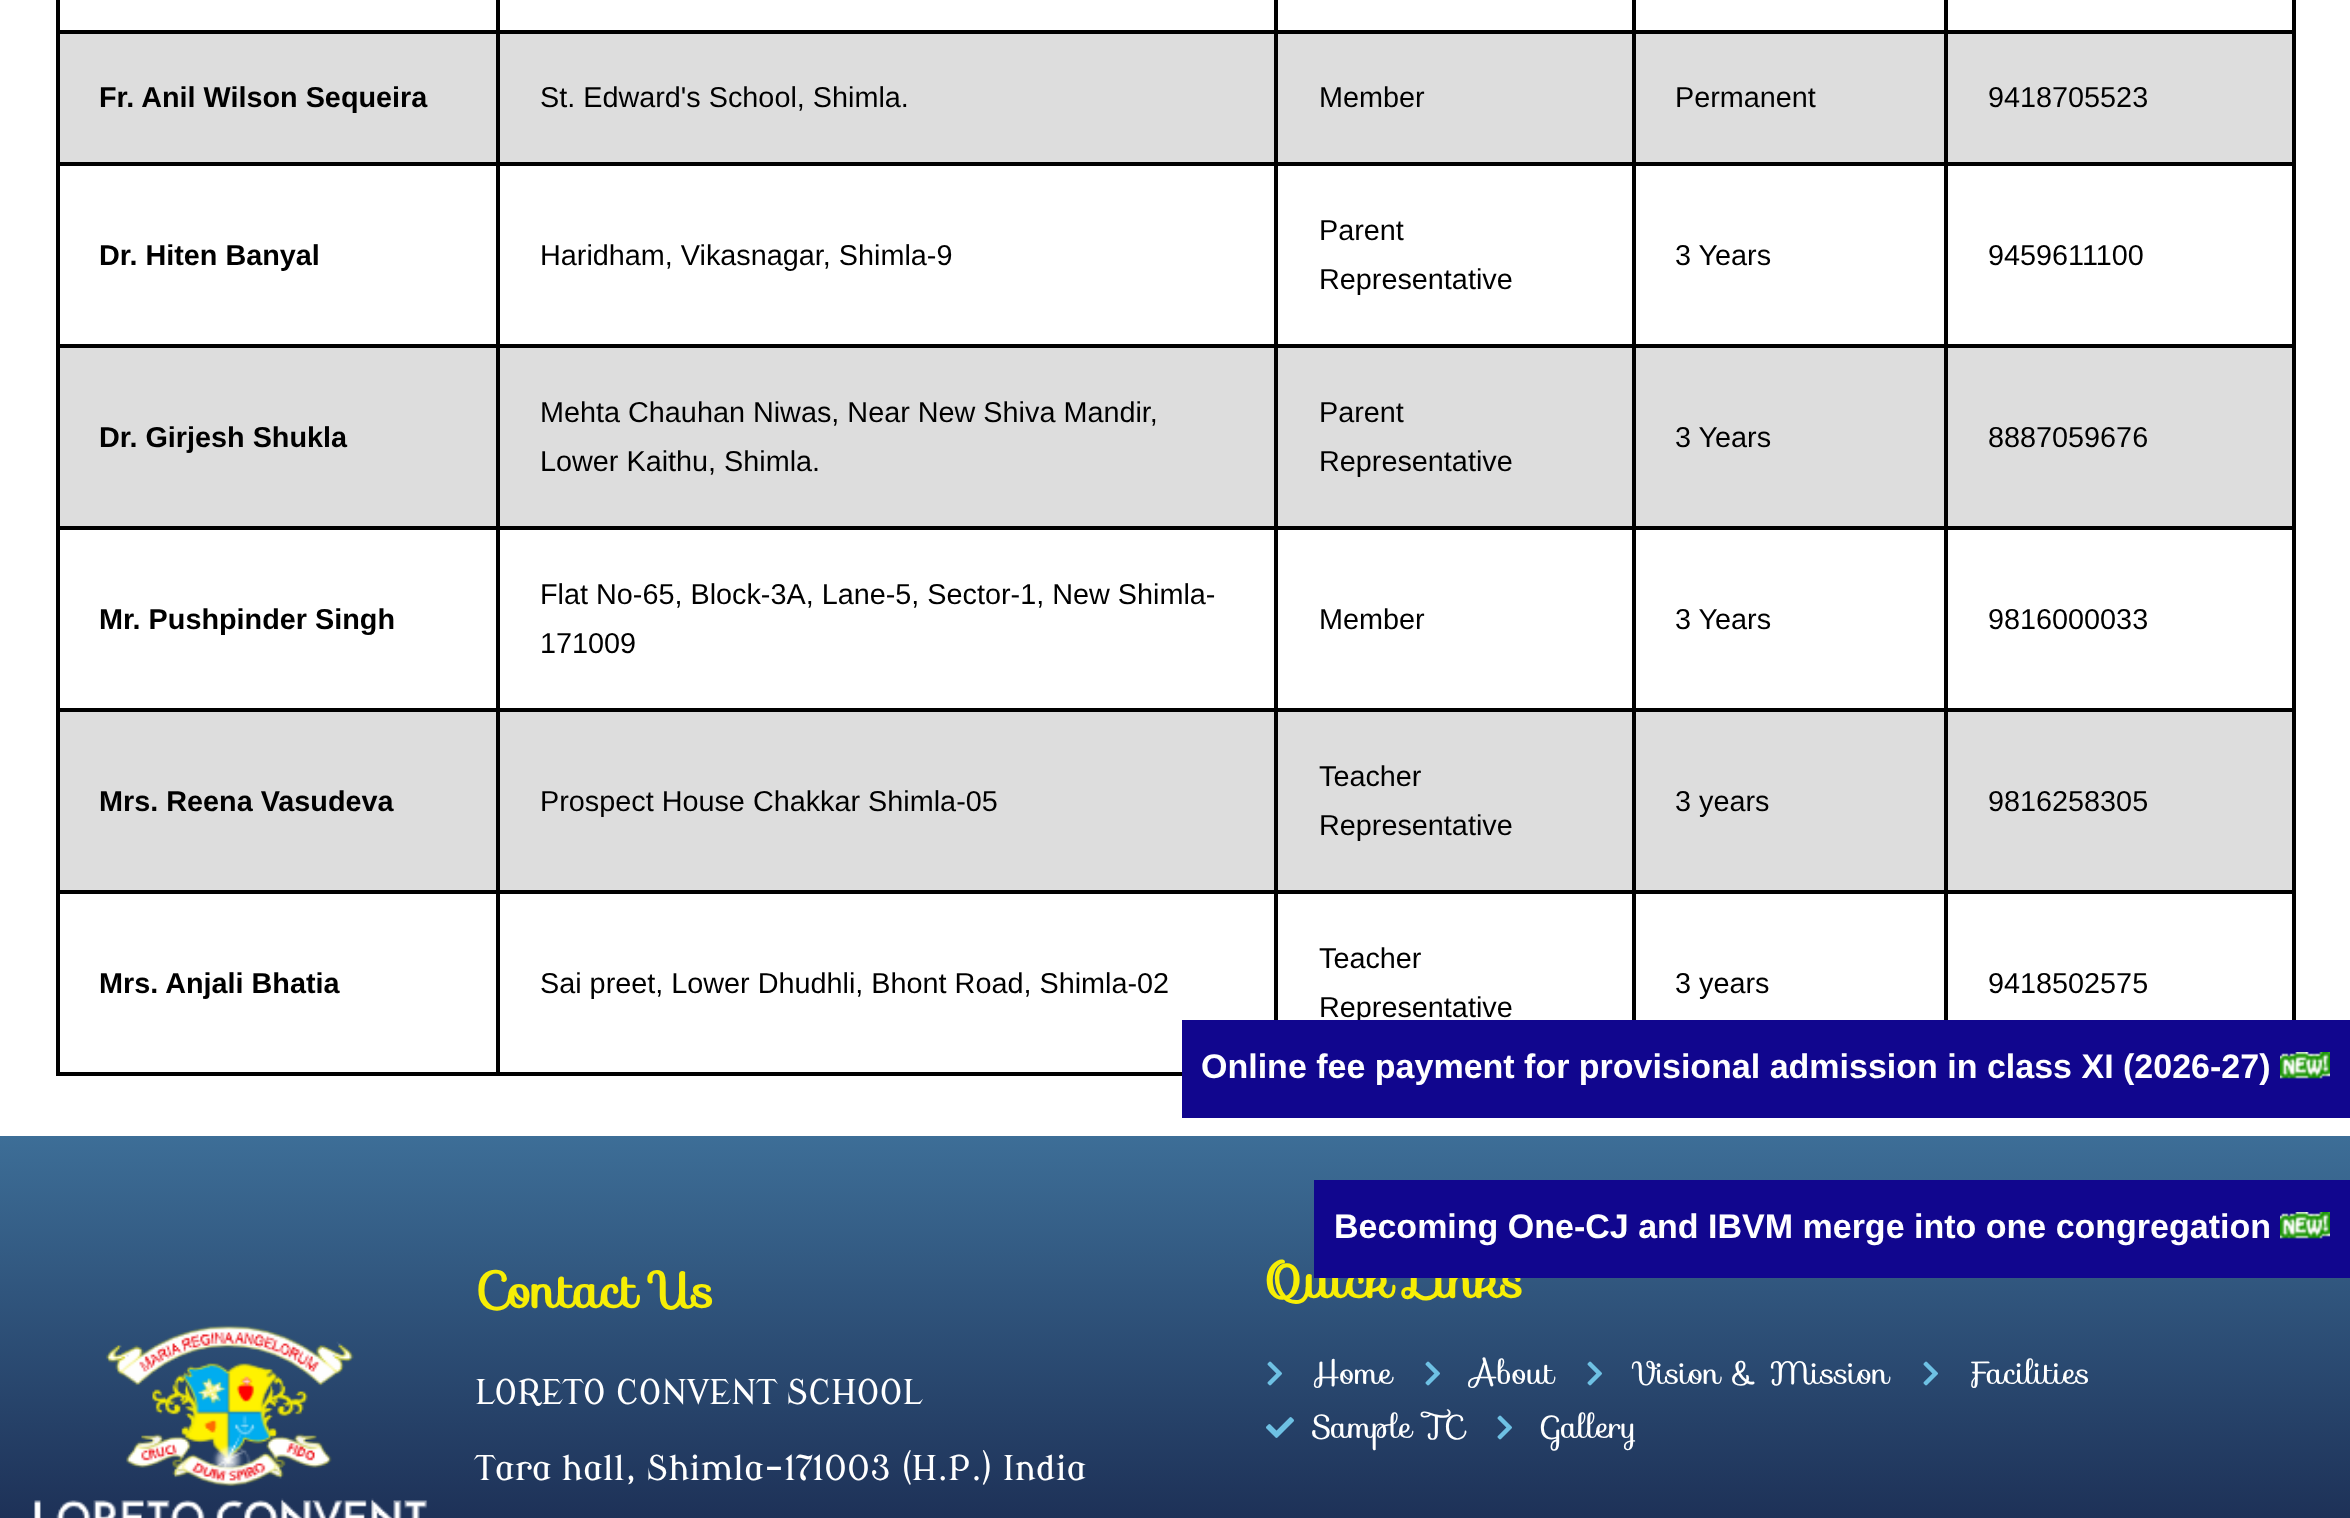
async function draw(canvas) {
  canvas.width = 2350;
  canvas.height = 1518;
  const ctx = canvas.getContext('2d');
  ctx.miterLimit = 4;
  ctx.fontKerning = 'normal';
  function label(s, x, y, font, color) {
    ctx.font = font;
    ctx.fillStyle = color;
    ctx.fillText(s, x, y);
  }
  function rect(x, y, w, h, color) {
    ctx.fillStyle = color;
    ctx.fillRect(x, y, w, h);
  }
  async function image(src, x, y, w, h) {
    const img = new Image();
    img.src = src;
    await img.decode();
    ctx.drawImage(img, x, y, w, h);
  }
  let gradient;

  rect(0, 0, 2350, 1518, '#fff');
  ctx.strokeStyle = '#000';
  ctx.lineWidth = 2;
  ctx.strokeRect(57, -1, 2238, 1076);
  ctx.strokeRect(59, -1, 438, 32);
  ctx.strokeRect(499, -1, 776, 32);
  ctx.strokeRect(1277, -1, 356, 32);
  ctx.strokeRect(1635, -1, 310, 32);
  ctx.strokeRect(1947, -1, 346, 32);
  rect(60, 34, 2232, 128, '#ddd');
  ctx.strokeRect(59, 33, 438, 130);
  label('Fr. Anil Wilson Sequeira', 99, 107, 'bold 28.8px Liberation Sans', '#000');
  ctx.strokeRect(499, 33, 776, 130);
  label('St. Edward\'s School, Shimla.', 540, 107, '28.8px Liberation Sans', '#000');
  ctx.strokeRect(1277, 33, 356, 130);
  label('Member', 1319, 107, '28.8px Liberation Sans', '#000');
  ctx.strokeRect(1635, 33, 310, 130);
  label('Permanent', 1675, 107, '28.8px Liberation Sans', '#000');
  ctx.strokeRect(1947, 33, 346, 130);
  label('9418705523', 1988, 107, '28.8px Liberation Sans', '#000');
  ctx.strokeRect(59, 165, 438, 180);
  label('Dr. Hiten Banyal', 99, 265, 'bold 28.8px Liberation Sans', '#000');
  ctx.strokeRect(499, 165, 776, 180);
  label('Haridham, Vikasnagar, Shimla-9', 540, 265, '28.8px Liberation Sans', '#000');
  ctx.strokeRect(1277, 165, 356, 180);
  label('Parent', 1319, 240, '28.8px Liberation Sans', '#000');
  label('Representative', 1319, 289, '28.8px Liberation Sans', '#000');
  ctx.strokeRect(1635, 165, 310, 180);
  label('3 Years', 1675, 265, '28.8px Liberation Sans', '#000');
  ctx.strokeRect(1947, 165, 346, 180);
  label('9459611100', 1988, 265, '28.8px Liberation Sans', '#000');
  rect(60, 348, 2232, 178, '#ddd');
  ctx.strokeRect(59, 347, 438, 180);
  label('Dr. Girjesh Shukla', 99, 447, 'bold 28.8px Liberation Sans', '#000');
  ctx.strokeRect(499, 347, 776, 180);
  label('Mehta Chauhan Niwas, Near New Shiva Mandir,', 540, 422, '28.8px Liberation Sans', '#000');
  label('Lower Kaithu, Shimla.', 540, 471, '28.8px Liberation Sans', '#000');
  ctx.strokeRect(1277, 347, 356, 180);
  label('Parent', 1319, 422, '28.8px Liberation Sans', '#000');
  label('Representative', 1319, 471, '28.8px Liberation Sans', '#000');
  ctx.strokeRect(1635, 347, 310, 180);
  label('3 Years', 1675, 447, '28.8px Liberation Sans', '#000');
  ctx.strokeRect(1947, 347, 346, 180);
  label('8887059676', 1988, 447, '28.8px Liberation Sans', '#000');
  ctx.strokeRect(59, 529, 438, 180);
  label('Mr. Pushpinder Singh', 99, 629, 'bold 28.8px Liberation Sans', '#000');
  ctx.strokeRect(499, 529, 776, 180);
  label('Flat No-65, Block-3A, Lane-5, Sector-1, New Shimla-', 540, 604, '28.8px Liberation Sans', '#000');
  label('171009', 540, 653, '28.8px Liberation Sans', '#000');
  ctx.strokeRect(1277, 529, 356, 180);
  label('Member', 1319, 629, '28.8px Liberation Sans', '#000');
  ctx.strokeRect(1635, 529, 310, 180);
  label('3 Years', 1675, 629, '28.8px Liberation Sans', '#000');
  ctx.strokeRect(1947, 529, 346, 180);
  label('9816000033', 1988, 629, '28.8px Liberation Sans', '#000');
  rect(60, 712, 2232, 178, '#ddd');
  ctx.strokeRect(59, 711, 438, 180);
  label('Mrs. Reena Vasudeva', 99, 811, 'bold 28.8px Liberation Sans', '#000');
  ctx.strokeRect(499, 711, 776, 180);
  label('Prospect House Chakkar Shimla-05', 540, 811, '28.8px Liberation Sans', '#000');
  ctx.strokeRect(1277, 711, 356, 180);
  label('Teacher', 1319, 786, '28.8px Liberation Sans', '#000');
  label('Representative', 1319, 835, '28.8px Liberation Sans', '#000');
  ctx.strokeRect(1635, 711, 310, 180);
  label('3 years', 1675, 811, '28.8px Liberation Sans', '#000');
  ctx.strokeRect(1947, 711, 346, 180);
  label('9816258305', 1988, 811, '28.8px Liberation Sans', '#000');
  ctx.strokeRect(59, 893, 438, 180);
  label('Mrs. Anjali Bhatia', 99, 993, 'bold 28.8px Liberation Sans', '#000');
  ctx.strokeRect(499, 893, 776, 180);
  label('Sai preet, Lower Dhudhli, Bhont Road, Shimla-02', 540, 993, '28.8px Liberation Sans', '#000');
  ctx.strokeRect(1277, 893, 356, 180);
  label('Teacher', 1319, 968, '28.8px Liberation Sans', '#000');
  label('Representative', 1319, 1017, '28.8px Liberation Sans', '#000');
  ctx.strokeRect(1635, 893, 310, 180);
  label('3 years', 1675, 993, '28.8px Liberation Sans', '#000');
  ctx.strokeRect(1947, 893, 346, 180);
  label('9418502575', 1988, 993, '28.8px Liberation Sans', '#000');
  gradient = ctx.createLinearGradient(1175, 1136, 1175, 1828);
  gradient.addColorStop(0, '#3d6e97');
  gradient.addColorStop(1, '#040024');
  ctx.fillStyle = gradient;
  ctx.fillRect(0, 1136, 2350, 382);
  await image('assets/img1.png', 34, 1325, 394, 193);
  label('Contact Us', 475, 1308, 'bold 50px Sofia', '#f7ee05');
  label('LORETO CONVENT SCHOOL', 475, 1404, '34px Modern Antiqua', '#fff');
  label('Tara hall, Shimla-171003 (H.P.) India', 475, 1480, '34px Modern Antiqua', '#fff');
  label('Quick Links', 1267, 1298, 'bold 50px Sofia', '#f7ee05');
  await image('assets/img2.png', 1267, 1361, 15, 25);
  label('Home', 1312, 1384, '32px Sofia', '#fff');
  await image('assets/img2.png', 1425, 1361, 15, 25);
  label('About', 1470, 1384, '32px Sofia', '#fff');
  await image('assets/img2.png', 1587, 1361, 15, 25);
  label('Vision & Mission', 1631, 1384, '32px Sofia', '#fff');
  await image('assets/img2.png', 1923, 1361, 15, 25);
  label('Facilities', 1967, 1384, '32px Sofia', '#fff');
  await image('assets/img3.png', 1266, 1417, 28, 21);
  label('Sample TC', 1312, 1438, '32px Sofia', '#fff');
  await image('assets/img4.png', 1497, 1415, 15, 25);
  label('Gallery', 1542, 1438, '32px Sofia', '#fff');
  rect(1182, 1020, 1168, 98, '#11068e');
  label('Online fee payment for provisional admission in class XI (2026-27)', 1201, 1078, 'bold 34px Liberation Sans', '#fff');
  await image('assets/img5.png', 2280, 1052, 50, 27);
  rect(1314, 1180, 1036, 98, '#11068e');
  label('Becoming One-CJ and IBVM merge into one congregation', 1334, 1238, 'bold 34px Liberation Sans', '#fff');
  await image('assets/img5.png', 2280, 1212, 50, 27);
}

draw(document.querySelector('canvas'));
